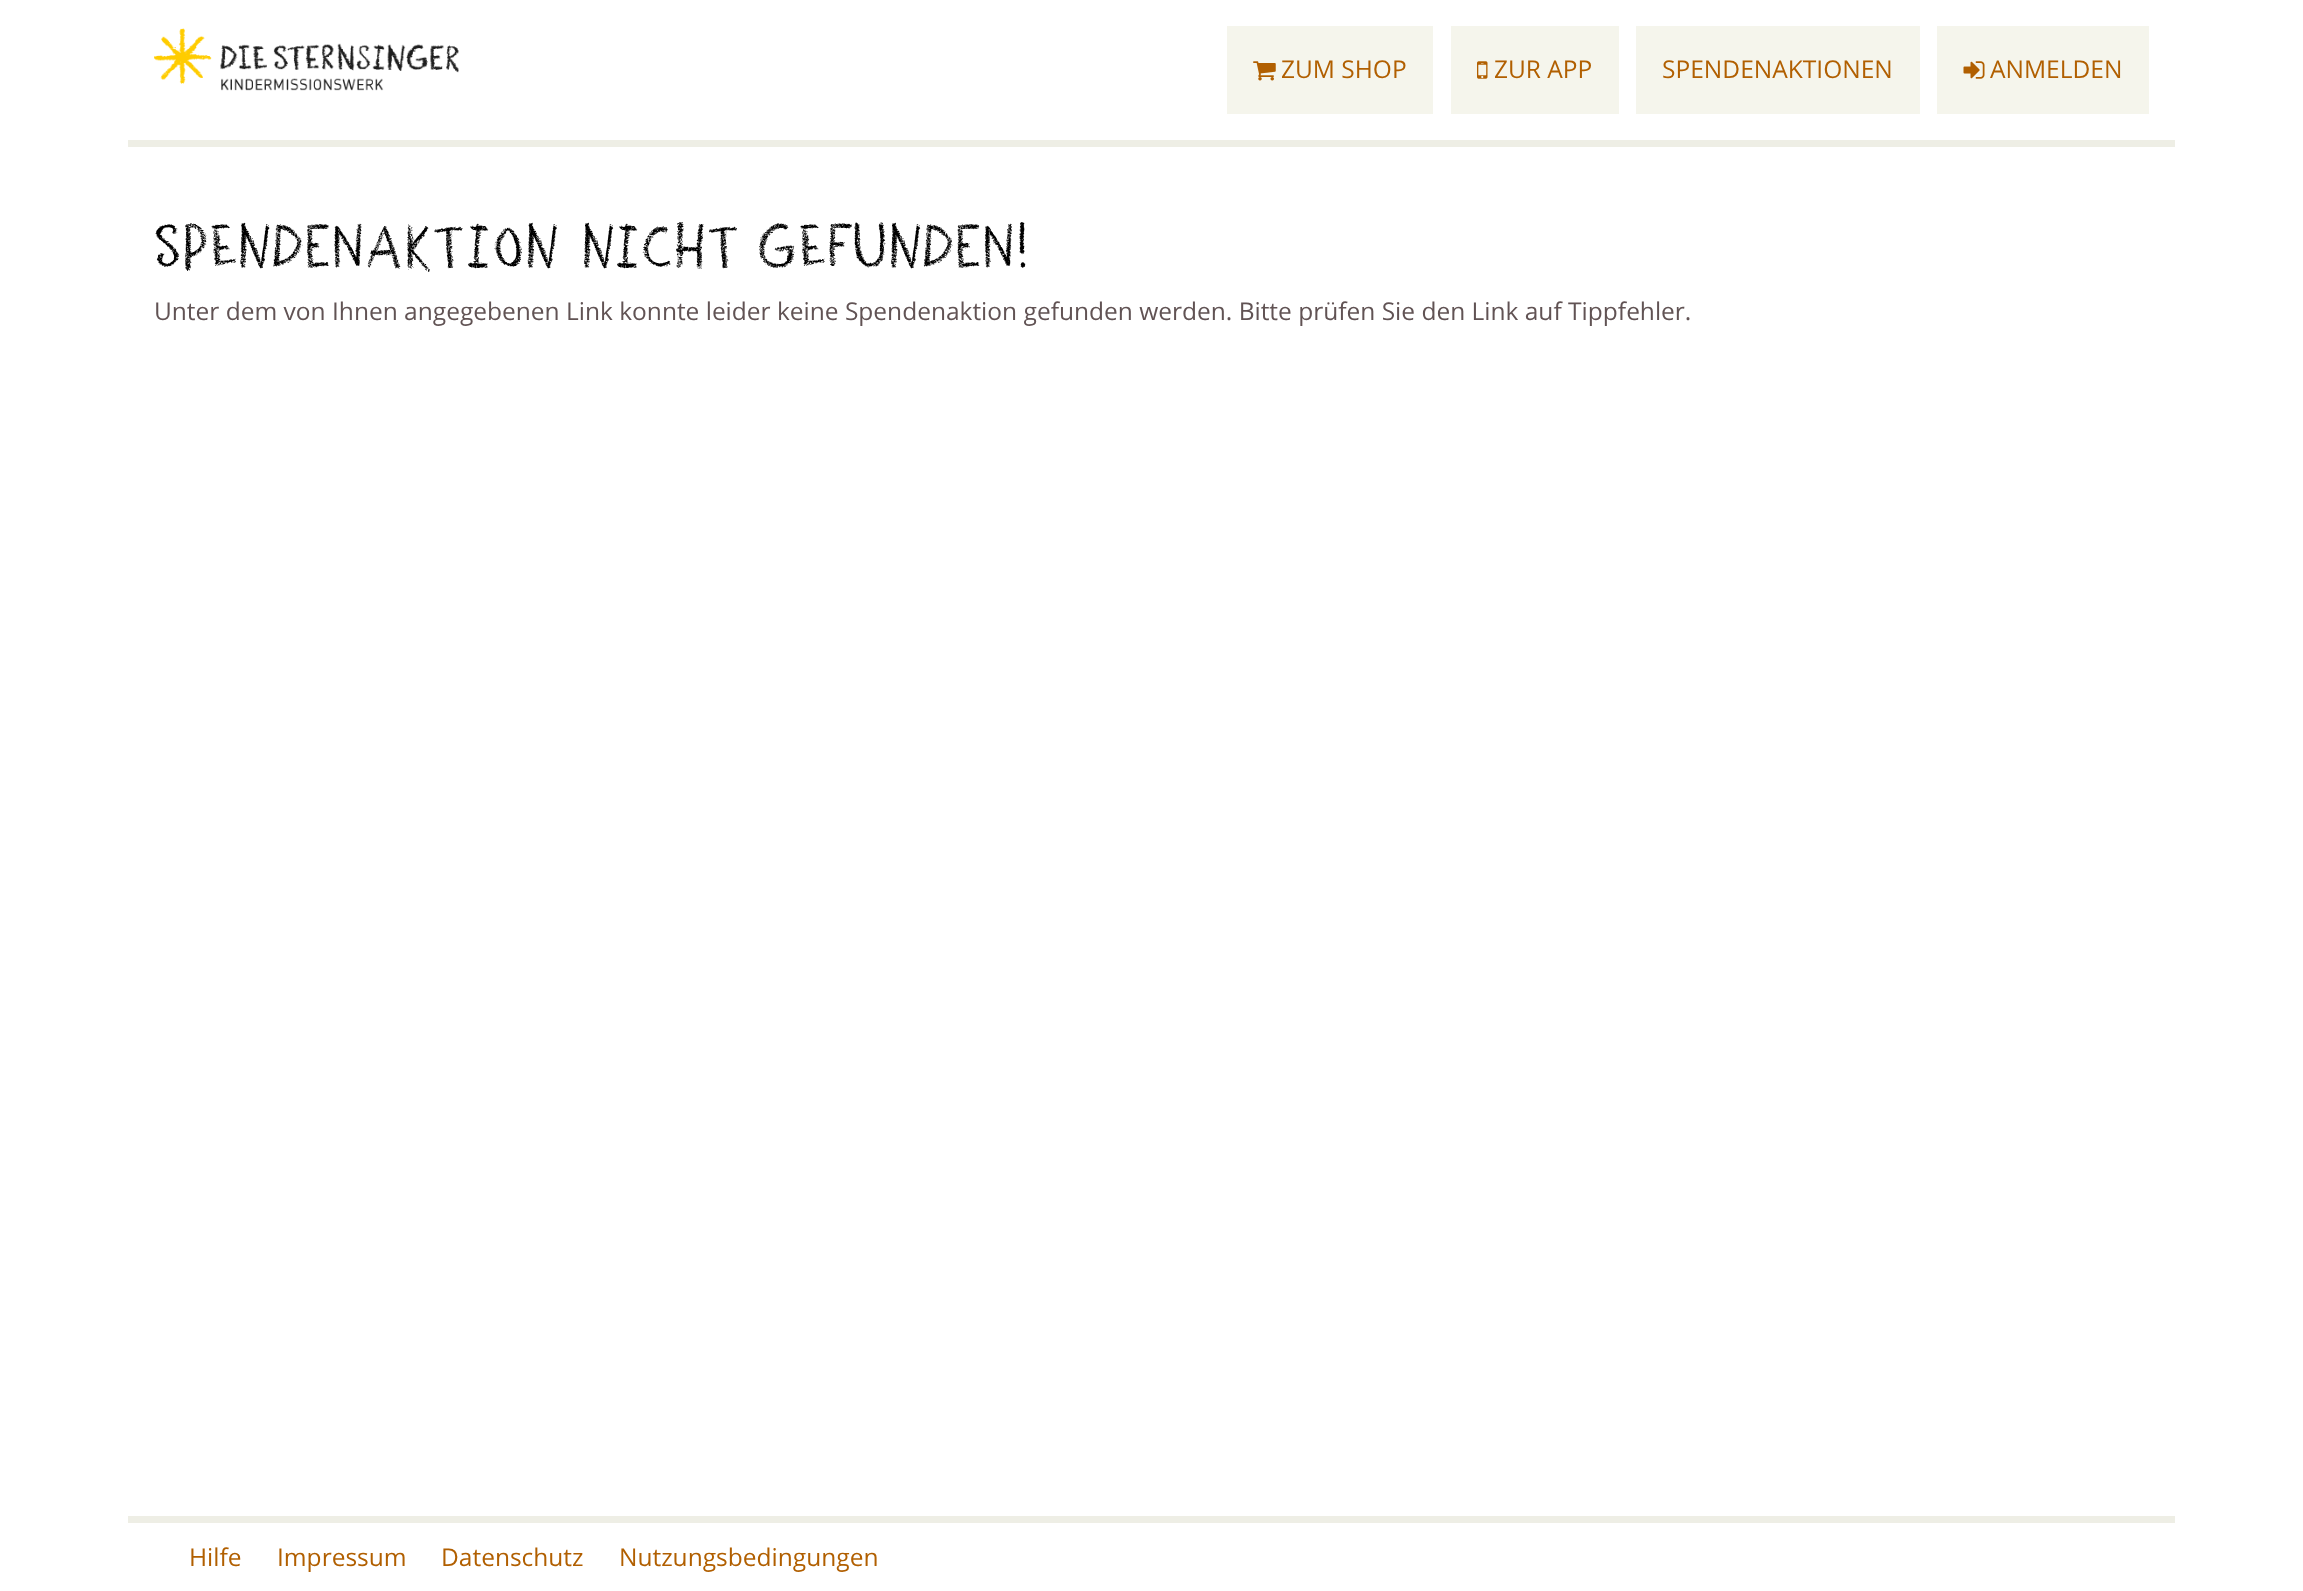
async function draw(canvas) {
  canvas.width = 2303;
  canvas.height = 1591;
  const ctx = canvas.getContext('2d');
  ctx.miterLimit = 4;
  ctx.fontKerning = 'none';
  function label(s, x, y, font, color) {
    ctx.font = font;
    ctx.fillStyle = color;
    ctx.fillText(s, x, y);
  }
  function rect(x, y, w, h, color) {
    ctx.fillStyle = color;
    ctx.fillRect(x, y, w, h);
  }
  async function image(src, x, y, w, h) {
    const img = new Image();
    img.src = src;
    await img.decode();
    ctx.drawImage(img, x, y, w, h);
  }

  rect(0, 0, 2303, 1591, '#fff');
  rect(128, 140, 2047, 7, '#eeeee5');
  await image('assets/img1.png', 154, 28, 305, 63);
  rect(1227, 26, 206, 88, '#f5f5ec');
  await image('assets/img2.png', 1253, 61, 23, 20);
  label('ZUM SHOP', 1281, 78, '24.5px Open Sans', '#b15f00');
  rect(1451, 26, 168, 88, '#f5f5ec');
  await image('assets/img3.png', 1477, 61, 11, 18);
  label('ZUR APP', 1494, 78, '24.5px Open Sans', '#b15f00');
  rect(1636, 26, 284, 88, '#f5f5ec');
  label('SPENDENAKTIONEN', 1662, 78, '24.5px Open Sans', '#b15f00');
  rect(1937, 26, 212, 88, '#f5f5ec');
  await image('assets/img4.png', 1963, 61, 22, 18);
  label('ANMELDEN', 1990, 78, '24.5px Open Sans', '#b15f00');
  label('Spendenaktion', 154, 266, '52.5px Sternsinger', '#000');
  label('nicht gefunden!', 581, 266, '52.5px Sternsinger', '#000');
  label('Unter dem von Ihnen angegebenen Link konnte leider keine Spendenaktion gefunden werden. Bitte prüfen Sie den Link auf Tippfehler.', 154, 320, '24.5px Open Sans', '#615354');
  rect(128, 1516, 2047, 7, '#eeeee5');
  label('Hilfe', 189, 1566, '24.5px Open Sans', '#b15f00');
  label('Impressum', 277, 1566, '24.5px Open Sans', '#b15f00');
  label('Datenschutz', 441, 1566, '24.5px Open Sans', '#b15f00');
  label('Nutzungsbedingungen', 619, 1566, '24.5px Open Sans', '#b15f00');
}

draw(document.querySelector('canvas'));
